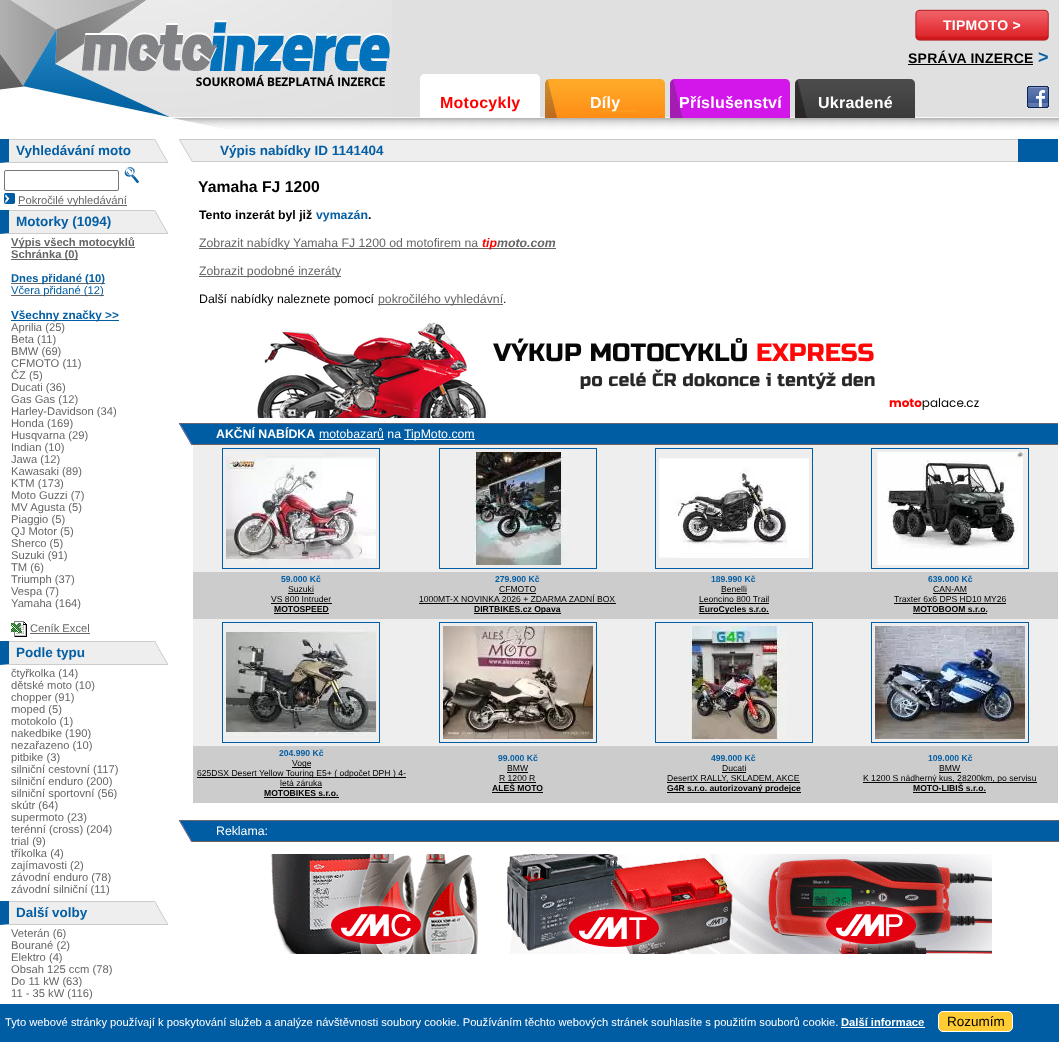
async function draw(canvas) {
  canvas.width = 1059;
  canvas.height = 1042;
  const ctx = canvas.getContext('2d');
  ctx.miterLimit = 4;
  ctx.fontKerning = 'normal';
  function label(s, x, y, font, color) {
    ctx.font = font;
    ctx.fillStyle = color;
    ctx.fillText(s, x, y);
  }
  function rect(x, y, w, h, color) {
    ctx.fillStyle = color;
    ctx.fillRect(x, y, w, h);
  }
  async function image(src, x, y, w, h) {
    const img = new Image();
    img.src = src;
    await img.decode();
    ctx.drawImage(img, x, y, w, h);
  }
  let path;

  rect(0, 0, 1059, 1042, '#fff');
  await image('assets/img1.png', 392, 0, 667, 130);
  await image('assets/img2.png', 0, 0, 392, 130);
  await image('assets/img3.png', 915, 9, 134, 32);
  ctx.letterSpacing = '0.25px';
  label('TIPMOTO >', 943, 30, 'bold 14px Liberation Sans', '#fff');
  label('SPRÁVA INZERCE', 908, 63, 'bold 14px Liberation Sans', '#000');
  rect(908, 64, 125, 1, '#000');
  label('>', 1038, 63, 'bold 18px Liberation Sans', '#035ea4');
  await image('assets/img4.png', 420, 74, 120, 44);
  label('Motocykly', 440, 108, 'bold 16px Liberation Sans', '#f00');
  await image('assets/img5.png', 545, 79, 120, 39);
  label('Díly', 590, 108, 'bold 16px Liberation Sans', '#fff');
  await image('assets/img6.png', 670, 79, 120, 39);
  label('Příslušenství', 679, 108, 'bold 16px Liberation Sans', '#fff');
  await image('assets/img7.png', 795, 79, 120, 39);
  label('Ukradené', 818, 108, 'bold 16px Liberation Sans', '#fff');
  await image('assets/img8.png', 1027, 86, 22, 22);
  rect(0, 140, 166, 23, '#eee');
  rect(9, 139, 145, 1, '#ccc');
  await image('assets/img9.png', 154, 139, 14, 23);
  path = new Path2D('M168 163H0L9 162H168Z');
  ctx.fill(path);
  ctx.fillStyle = '#005ca3';
  path = new Path2D('M0 163V139H9V162Z');
  ctx.fill(path);
  ctx.letterSpacing = '0px';
  label('Vyhledávání moto', 16, 155, 'bold 13.5px Liberation Sans', '#035ea4');
  ctx.beginPath();
  ctx.roundRect(4.5, 170.5, 114, 20, 1.5);
  ctx.strokeStyle = '#767676';
  ctx.stroke();
  await image('assets/img10.png', 124, 167, 15, 16);
  await image('assets/img11.png', 4, 193, 11, 11);
  rect(18, 205, 109, 1, '#666');
  label('Pokročilé vyhledávání', 18, 204, '11.2px Liberation Sans', '#666');
  rect(0, 211, 166, 23, '#eee');
  rect(9, 210, 145, 1, '#ccc');
  await image('assets/img9.png', 154, 210, 14, 23);
  path = new Path2D('M168 234H0L9 233H168Z');
  ctx.fill(path);
  ctx.fillStyle = '#005ca3';
  path = new Path2D('M0 234V210H9V233Z');
  ctx.fill(path);
  label('Motorky (1094)', 16, 226, 'bold 13.5px Liberation Sans', '#035ea4');
  rect(11, 247, 124, 1, '#666');
  label('Výpis všech motocyklů', 11, 246, 'bold 11.2px Liberation Sans', '#666');
  rect(11, 259, 67, 1, '#666');
  label('Schránka (0)', 11, 258, 'bold 11.2px Liberation Sans', '#666');
  rect(11, 283, 94, 1, '#666');
  label('Dnes přidané (10)', 11, 282, 'bold 11.2px Liberation Sans', '#035ea4');
  rect(11, 295, 93, 1, '#666');
  label('Včera přidané (12)', 11, 294, '11.2px Liberation Sans', '#035ea4');
  rect(11, 320, 108, 1, '#005ca3');
  label('Všechny značky >>', 11, 319, 'bold 11.75px Liberation Sans', '#035ea4');
  label('Aprilia (25)', 11, 331, '11.2px Liberation Sans', '#666');
  label('Beta (11)', 11, 343, '11.2px Liberation Sans', '#666');
  label('BMW (69)', 11, 355, '11.2px Liberation Sans', '#666');
  label('CFMOTO (11)', 11, 367, '11.2px Liberation Sans', '#666');
  label('ČZ (5)', 11, 379, '11.2px Liberation Sans', '#666');
  label('Ducati (36)', 11, 391, '11.2px Liberation Sans', '#666');
  label('Gas Gas (12)', 11, 403, '11.2px Liberation Sans', '#666');
  label('Harley-Davidson (34)', 11, 415, '11.2px Liberation Sans', '#666');
  label('Honda (169)', 11, 427, '11.2px Liberation Sans', '#666');
  label('Husqvarna (29)', 11, 439, '11.2px Liberation Sans', '#666');
  label('Indian (10)', 11, 451, '11.2px Liberation Sans', '#666');
  label('Jawa (12)', 11, 463, '11.2px Liberation Sans', '#666');
  label('Kawasaki (89)', 11, 475, '11.2px Liberation Sans', '#666');
  label('KTM (173)', 11, 487, '11.2px Liberation Sans', '#666');
  label('Moto Guzzi (7)', 11, 499, '11.2px Liberation Sans', '#666');
  label('MV Agusta (5)', 11, 511, '11.2px Liberation Sans', '#666');
  label('Piaggio (5)', 11, 523, '11.2px Liberation Sans', '#666');
  label('QJ Motor (5)', 11, 535, '11.2px Liberation Sans', '#666');
  label('Sherco (5)', 11, 547, '11.2px Liberation Sans', '#666');
  label('Suzuki (91)', 11, 559, '11.2px Liberation Sans', '#666');
  label('TM (6)', 11, 571, '11.2px Liberation Sans', '#666');
  label('Triumph (37)', 11, 583, '11.2px Liberation Sans', '#666');
  label('Vespa (7)', 11, 595, '11.2px Liberation Sans', '#666');
  label('Yamaha (164)', 11, 607, '11.2px Liberation Sans', '#666');
  await image('assets/img12.png', 11, 621, 16, 16);
  label('Ceník Excel', 30, 632, '11.2px Liberation Sans', '#666');
  rect(30, 633, 60, 1, '#666');
  rect(0, 642, 166, 23, '#eee');
  rect(9, 641, 145, 1, '#ccc');
  await image('assets/img9.png', 154, 641, 14, 23);
  path = new Path2D('M168 665H0L9 664H168Z');
  ctx.fill(path);
  ctx.fillStyle = '#005ca3';
  path = new Path2D('M0 665V641H9V664Z');
  ctx.fill(path);
  label('Podle typu', 16, 657, 'bold 13.5px Liberation Sans', '#035ea4');
  label('čtyřkolka (14)', 11, 677, '11.2px Liberation Sans', '#666');
  label('dětské moto (10)', 11, 689, '11.2px Liberation Sans', '#666');
  label('chopper (91)', 11, 701, '11.2px Liberation Sans', '#666');
  label('moped (5)', 11, 713, '11.2px Liberation Sans', '#666');
  label('motokolo (1)', 11, 725, '11.2px Liberation Sans', '#666');
  label('nakedbike (190)', 11, 737, '11.2px Liberation Sans', '#666');
  label('nezařazeno (10)', 11, 749, '11.2px Liberation Sans', '#666');
  label('pitbike (3)', 11, 761, '11.2px Liberation Sans', '#666');
  label('silniční cestovní (117)', 11, 773, '11.2px Liberation Sans', '#666');
  label('silniční enduro (200)', 11, 785, '11.2px Liberation Sans', '#666');
  label('silniční sportovní (56)', 11, 797, '11.2px Liberation Sans', '#666');
  label('skútr (64)', 11, 809, '11.2px Liberation Sans', '#666');
  label('supermoto (23)', 11, 821, '11.2px Liberation Sans', '#666');
  label('terénní (cross) (204)', 11, 833, '11.2px Liberation Sans', '#666');
  label('trial (9)', 11, 845, '11.2px Liberation Sans', '#666');
  label('tříkolka (4)', 11, 857, '11.2px Liberation Sans', '#666');
  label('zajímavosti (2)', 11, 869, '11.2px Liberation Sans', '#666');
  label('závodní enduro (78)', 11, 881, '11.2px Liberation Sans', '#666');
  label('závodní silniční (11)', 11, 893, '11.2px Liberation Sans', '#666');
  rect(0, 902, 166, 23, '#eee');
  rect(9, 901, 145, 1, '#ccc');
  await image('assets/img9.png', 154, 901, 14, 23);
  path = new Path2D('M168 925H0L9 924H168Z');
  ctx.fill(path);
  ctx.fillStyle = '#005ca3';
  path = new Path2D('M0 925V901H9V924Z');
  ctx.fill(path);
  label('Další volby', 16, 917, 'bold 13.5px Liberation Sans', '#035ea4');
  label('Veterán (6)', 11, 937, '11.2px Liberation Sans', '#666');
  label('Bourané (2)', 11, 949, '11.2px Liberation Sans', '#666');
  label('Elektro (4)', 11, 961, '11.2px Liberation Sans', '#666');
  label('Obsah 125 ccm (78)', 11, 973, '11.2px Liberation Sans', '#666');
  label('Do 11 kW (63)', 11, 985, '11.2px Liberation Sans', '#666');
  label('11 - 35 kW (116)', 11, 997, '11.2px Liberation Sans', '#666');
  rect(181, 140, 837, 21, '#eee');
  rect(193, 161, 825, 1, '#ccc');
  await image('assets/img13.png', 179, 139, 839, 23);
  rect(1018, 139, 40, 23, '#005ca3');
  label('Výpis nabídky ID 1141404', 220, 155, 'bold 13.5px Liberation Sans', '#035ea4');
  label('Yamaha FJ 1200', 198, 192, 'bold 15.75px Liberation Sans', '#000');
  label('Tento inzerát byl již', 199, 219, 'bold 12.3px Liberation Sans', '#000');
  label('vymazán', 316, 219, 'bold 12.3px Liberation Sans', '#035ea4');
  label('.', 368, 219, 'bold 12.3px Liberation Sans', '#000');
  rect(199, 248, 357, 1, '#666');
  label('Zobrazit nabídky Yamaha FJ 1200 od motofirem na', 199, 247, '12.3px Liberation Sans', '#666');
  label('tip', 482, 247, 'italic bold 12.3px Liberation Sans', '#f00');
  label('moto.com', 497, 247, 'italic bold 12.3px Liberation Sans', '#666');
  rect(199, 276, 142, 1, '#666');
  label('Zobrazit podobné inzeráty', 199, 275, '12.3px Liberation Sans', '#666');
  label('Další nabídky naleznete pomocí', 199, 303, '12.3px Liberation Sans', '#000');
  rect(378, 304, 125, 1, '#666');
  label('pokročilého vyhledávní', 378, 303, '12.3px Liberation Sans', '#666');
  label('.', 503, 303, '12.3px Liberation Sans', '#000');
  await image('assets/img14.png', 257, 322, 722, 96);
  rect(181, 424, 877, 20, '#005ca3');
  rect(192, 444, 866, 1, '#726363');
  await image('assets/img15.png', 179, 423, 879, 22);
  label('AKČNÍ NABÍDKA', 216, 438, 'bold 12.3px Liberation Sans', '#fff');
  label('motobazarů na', 319, 438, '12.3px Liberation Sans', '#fff');
  rect(319, 439, 65, 1, '#fff');
  rect(404, 439, 71, 1, '#fff');
  label('TipMoto.com', 404, 438, '12.3px Liberation Sans', '#fff');
  rect(193, 445, 865, 127, '#eee');
  ctx.strokeStyle = '#005ca3';
  ctx.strokeRect(222.5, 448.5, 157, 120);
  await image('assets/img16.png', 226, 452, 150, 112);
  ctx.strokeRect(439.5, 448.5, 157, 120);
  await image('assets/img17.png', 473, 452, 94, 113);
  ctx.strokeRect(655.5, 448.5, 157, 120);
  await image('assets/img18.png', 659, 458, 150, 100);
  ctx.strokeRect(871.5, 448.5, 157, 120);
  await image('assets/img19.png', 877, 452, 148, 113);
  rect(193, 572, 865, 47, '#ccc');
  label('59.000 Kč', 281, 582, 'bold 8.6px Liberation Sans', '#035ea4');
  label('Suzuki', 288, 592, '8.6px Liberation Sans', '#000');
  rect(288, 593, 26, 1, '#000');
  label('VS 800 Intruder', 271, 602, '8.6px Liberation Sans', '#000');
  rect(271, 603, 61, 1, '#000');
  label('MOTOSPEED', 274, 612, 'bold 8.6px Liberation Sans', '#000');
  rect(274, 613, 55, 1, '#000');
  label('279.900 Kč', 495, 582, 'bold 8.6px Liberation Sans', '#035ea4');
  label('CFMOTO', 499, 592, '8.6px Liberation Sans', '#000');
  rect(499, 593, 37, 1, '#000');
  label('1000MT-X NOVINKA 2026 + ZDARMA ZADNÍ BOX', 419, 602, '8.6px Liberation Sans', '#000');
  rect(419, 603, 197, 1, '#000');
  rect(474, 613, 87, 1, '#000');
  label('DIRTBIKES.cz Opava', 474, 612, 'bold 8.6px Liberation Sans', '#000');
  label('189.990 Kč', 711, 582, 'bold 8.6px Liberation Sans', '#035ea4');
  label('Benelli', 721, 592, '8.6px Liberation Sans', '#000');
  rect(721, 593, 26, 1, '#000');
  label('Leoncino 800 Trail', 699, 602, '8.6px Liberation Sans', '#000');
  rect(699, 603, 70, 1, '#000');
  rect(699, 613, 70, 1, '#000');
  label('EuroCycles s.r.o.', 699, 612, 'bold 8.6px Liberation Sans', '#000');
  label('639.000 Kč', 928, 582, 'bold 8.6px Liberation Sans', '#035ea4');
  label('CAN-AM', 933, 592, '8.6px Liberation Sans', '#000');
  rect(933, 593, 34, 1, '#000');
  label('Traxter 6x6 DPS HD10 MY26', 894, 602, '8.6px Liberation Sans', '#000');
  rect(894, 603, 112, 1, '#000');
  label('MOTOBOOM s.r.o.', 913, 612, 'bold 8.6px Liberation Sans', '#000');
  rect(913, 613, 74, 1, '#000');
  rect(193, 619, 865, 127, '#eee');
  ctx.strokeRect(222.5, 622.5, 157, 120);
  await image('assets/img20.png', 226, 630, 150, 106);
  ctx.strokeRect(439.5, 622.5, 157, 120);
  await image('assets/img21.png', 443, 626, 150, 113);
  ctx.strokeRect(655.5, 622.5, 157, 120);
  await image('assets/img22.png', 686, 626, 101, 113);
  ctx.strokeRect(871.5, 622.5, 157, 120);
  await image('assets/img23.png', 875, 626, 150, 113);
  rect(193, 746, 865, 57, '#ccc');
  label('204.990 Kč', 279, 756, 'bold 8.6px Liberation Sans', '#035ea4');
  rect(292, 767, 19, 1, '#000');
  label('Voge', 292, 766, '8.6px Liberation Sans', '#000');
  rect(197, 777, 209, 1, '#000');
  label('625DSX Desert Yellow Touring E5+ ( odpočet DPH ) 4-', 197, 776, '8.6px Liberation Sans', '#000');
  label('letá záruka', 280, 786, '8.6px Liberation Sans', '#000');
  rect(280, 787, 42, 1, '#000');
  label('MOTOBIKES s.r.o.', 264, 796, 'bold 8.6px Liberation Sans', '#000');
  rect(264, 797, 75, 1, '#000');
  label('99.000 Kč', 498, 761, 'bold 8.6px Liberation Sans', '#035ea4');
  label('BMW', 507, 771, '8.6px Liberation Sans', '#000');
  rect(507, 772, 21, 1, '#000');
  label('R 1200 R', 499, 781, '8.6px Liberation Sans', '#000');
  rect(499, 782, 37, 1, '#000');
  label('ALEŠ MOTO', 492, 791, 'bold 8.6px Liberation Sans', '#000');
  rect(492, 792, 51, 1, '#000');
  label('499.000 Kč', 711, 761, 'bold 8.6px Liberation Sans', '#035ea4');
  label('Ducati', 722, 771, '8.6px Liberation Sans', '#000');
  rect(722, 772, 24, 1, '#000');
  rect(667, 782, 133, 1, '#000');
  label('DesertX RALLY, SKLADEM, AKCE', 667, 781, '8.6px Liberation Sans', '#000');
  rect(667, 792, 134, 1, '#000');
  label('G4R s.r.o. autorizovaný prodejce', 667, 791, 'bold 8.6px Liberation Sans', '#000');
  label('109.000 Kč', 928, 761, 'bold 8.6px Liberation Sans', '#035ea4');
  label('BMW', 939, 771, '8.6px Liberation Sans', '#000');
  rect(939, 772, 22, 1, '#000');
  rect(863, 782, 174, 1, '#000');
  label('K 1200 S nádherný kus, 28200km, po servisu', 863, 781, '8.6px Liberation Sans', '#000');
  label('MOTO-LIBIŠ s.r.o.', 913, 791, 'bold 8.6px Liberation Sans', '#000');
  rect(913, 792, 73, 1, '#000');
  rect(181, 821, 878, 20, '#005ca3');
  rect(192, 841, 867, 1, '#726363');
  await image('assets/img24.png', 179, 820, 880, 22);
  label('Reklama:', 216, 835, '12.3px Liberation Sans', '#fff');
  await image('assets/img25.png', 271, 854, 721, 100);
  rect(0, 1004, 1059, 38, '#005ca3');
  label('Tyto webové stránky používají k poskytování služeb a analýze návštěvnosti soubory cookie. Používáním těchto webových stránek souhlasíte s použitím souborů cookie.', 5, 1026, '11.2px Liberation Sans', '#fff');
  label('Další informace', 841, 1026, 'bold 11.2px Liberation Sans', '#fff');
  rect(841, 1027, 84, 1, '#fff');
  ctx.fillStyle = '#fc3';
  ctx.beginPath();
  ctx.roundRect(938.5, 1011.5, 74, 20, 4.5);
  ctx.fill();
  ctx.strokeStyle = '#fff';
  ctx.stroke();
  label('Rozumím', 947, 1026, '13.5px Liberation Sans', '#000');
}

draw(document.querySelector('canvas'));
